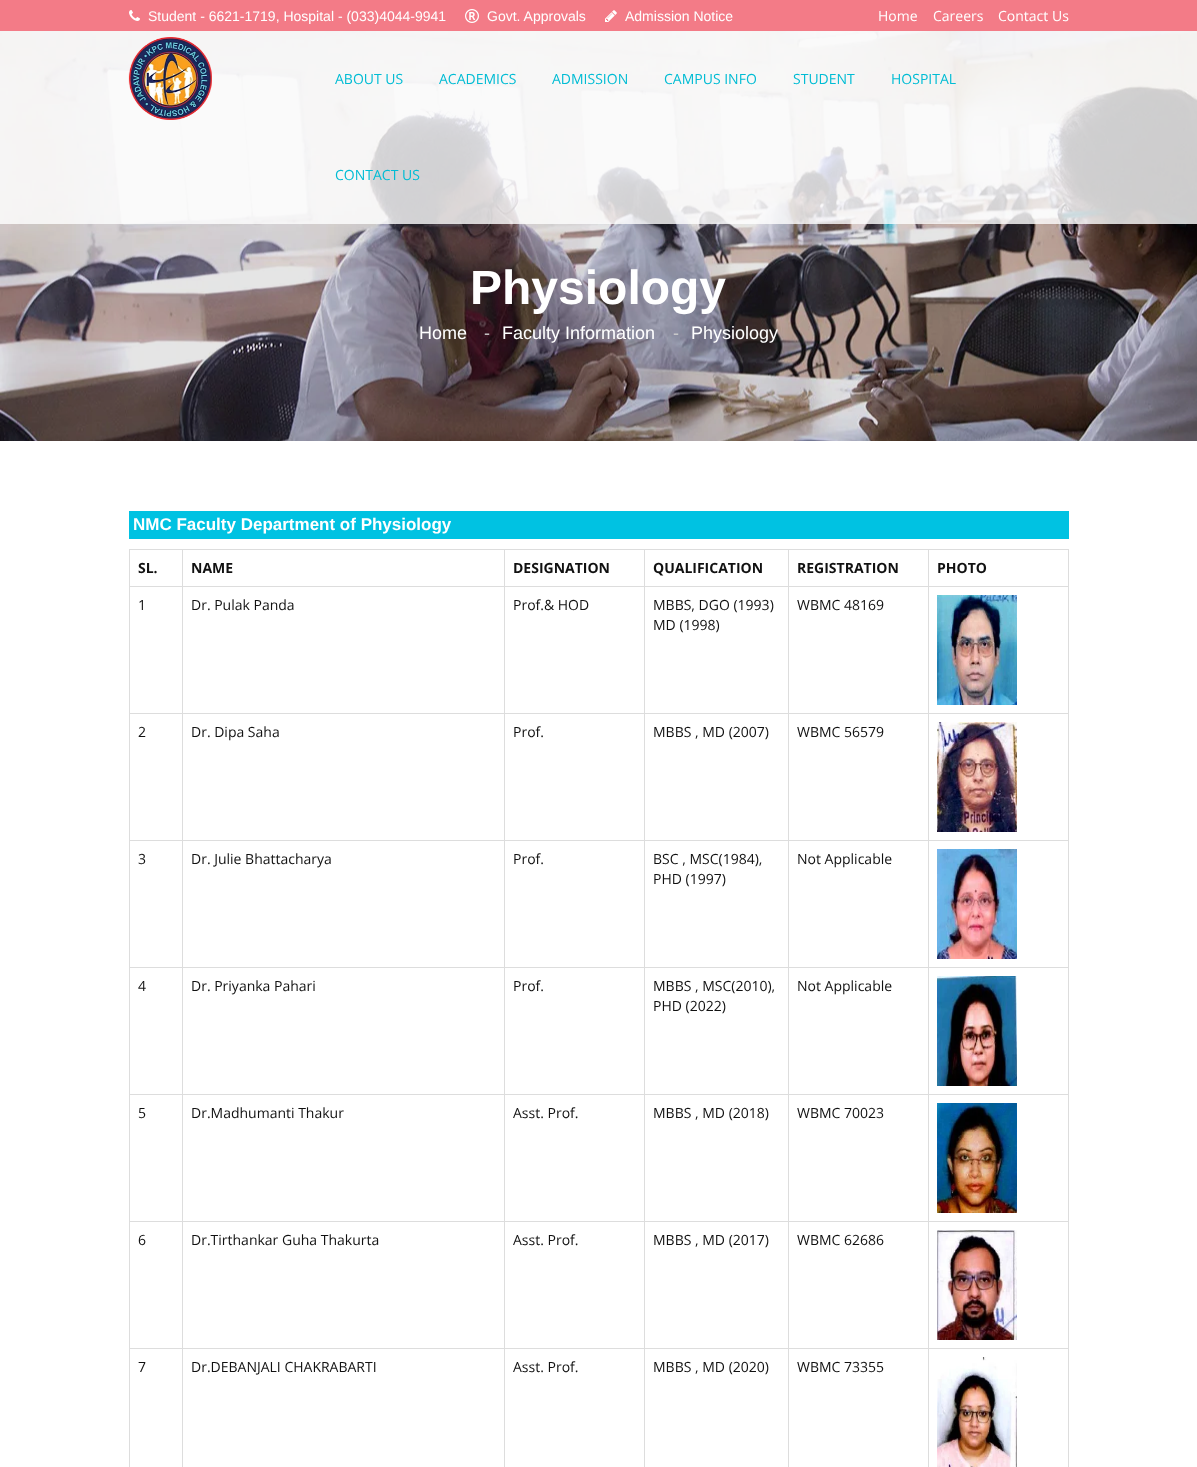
async function draw(canvas) {
  canvas.width = 1197;
  canvas.height = 1467;
  const ctx = canvas.getContext('2d');
  ctx.miterLimit = 4;
  ctx.fontKerning = 'normal';
  function label(s, x, y, font, color) {
    ctx.font = font;
    ctx.fillStyle = color;
    ctx.fillText(s, x, y);
  }
  function rect(x, y, w, h, color) {
    ctx.fillStyle = color;
    ctx.fillRect(x, y, w, h);
  }
  async function image(src, x, y, w, h) {
    const img = new Image();
    img.src = src;
    await img.decode();
    ctx.drawImage(img, x, y, w, h);
  }

  rect(0, 0, 1197, 1467, '#fff');
  rect(0, 0, 1197, 31, '#f37b87');
  await image('assets/img1.png', 129, 10, 11, 11);
  label('Student - 6621-1719, Hospital - (033)4044-9941', 148, 21, '14px Liberation Sans', '#fff');
  await image('assets/img2.png', 465, 9, 14, 14);
  label('Govt. Approvals', 487, 21, '14px Liberation Sans', '#fff');
  await image('assets/img3.png', 605, 10, 12, 12);
  label('Admission Notice', 625, 21, '14px Liberation Sans', '#fff');
  label('Home', 878, 21, '14px Open Sans', '#fff');
  label('Careers', 933, 21, '14px Open Sans', '#fff');
  label('Contact Us', 998, 21, '14px Open Sans', '#fff');
  await image('assets/img5.png', 0, 31, 1197, 410);
  rect(0, 31, 1197, 193, '#ffffffcc');
  await image('assets/img4.png', 128, 37, 84, 83);
  label('ABOUT US', 335, 84, '14px Open Sans', '#00bcd4');
  label('ACADEMICS', 439, 84, '14px Open Sans', '#00bcd4');
  label('ADMISSION', 552, 84, '14px Open Sans', '#00bcd4');
  label('CAMPUS INFO', 664, 84, '14px Open Sans', '#00bcd4');
  label('STUDENT', 793, 84, '14px Open Sans', '#00bcd4');
  label('HOSPITAL', 891, 84, '14px Open Sans', '#00bcd4');
  label('CONTACT US', 335, 180, '14px Open Sans', '#00bcd4');
  label('Physiology', 470, 304, 'bold 48px Liberation Sans', '#fff');
  label('Home', 419, 339, '18px Liberation Sans', '#fff');
  label('-', 484, 339, '18px Liberation Sans', '#ccc');
  label('Faculty Information', 502, 339, '18px Liberation Sans', '#fff');
  label('-', 673, 339, '18px Liberation Sans', '#ccc');
  label('Physiology', 691, 339, '18px Liberation Sans', '#fff');
  rect(129, 511, 940, 28, '#00c2e2');
  label('NMC Faculty Department of Physiology', 133, 530, 'bold 17px Liberation Sans', '#fff');
  rect(129, 549, 940, 1, '#ddd');
  rect(1068, 549, 1, 918, '#ddd');
  rect(129, 549, 1, 918, '#ddd');
  label('SL.', 138, 573, 'bold 14px Open Sans', '#111');
  rect(928, 586, 141, 1, '#ddd');
  rect(928, 713, 141, 1, '#ddd');
  rect(928, 840, 141, 1, '#ddd');
  rect(928, 967, 141, 1, '#ddd');
  rect(928, 1094, 141, 1, '#ddd');
  rect(928, 1221, 141, 1, '#ddd');
  rect(928, 1348, 141, 1, '#ddd');
  rect(928, 1348, 1, 119, '#ddd');
  rect(788, 1348, 141, 1, '#ddd');
  rect(928, 1221, 1, 128, '#ddd');
  rect(788, 1221, 141, 1, '#ddd');
  rect(928, 1094, 1, 128, '#ddd');
  rect(788, 1094, 141, 1, '#ddd');
  rect(928, 967, 1, 128, '#ddd');
  rect(788, 967, 141, 1, '#ddd');
  rect(928, 840, 1, 128, '#ddd');
  rect(788, 840, 141, 1, '#ddd');
  rect(928, 713, 1, 128, '#ddd');
  rect(788, 713, 141, 1, '#ddd');
  rect(928, 586, 1, 128, '#ddd');
  rect(788, 586, 141, 1, '#ddd');
  rect(788, 1348, 1, 119, '#ddd');
  rect(644, 1348, 145, 1, '#ddd');
  rect(788, 1221, 1, 128, '#ddd');
  rect(644, 1221, 145, 1, '#ddd');
  rect(788, 1094, 1, 128, '#ddd');
  rect(644, 1094, 145, 1, '#ddd');
  rect(788, 967, 1, 128, '#ddd');
  rect(644, 967, 145, 1, '#ddd');
  rect(788, 840, 1, 128, '#ddd');
  rect(644, 840, 145, 1, '#ddd');
  rect(788, 713, 1, 128, '#ddd');
  rect(644, 713, 145, 1, '#ddd');
  rect(788, 586, 1, 128, '#ddd');
  rect(644, 586, 145, 1, '#ddd');
  rect(644, 1348, 1, 119, '#ddd');
  rect(504, 1348, 141, 1, '#ddd');
  rect(644, 1221, 1, 128, '#ddd');
  rect(504, 1221, 141, 1, '#ddd');
  rect(644, 1094, 1, 128, '#ddd');
  rect(504, 1094, 141, 1, '#ddd');
  rect(644, 967, 1, 128, '#ddd');
  rect(504, 967, 141, 1, '#ddd');
  rect(644, 840, 1, 128, '#ddd');
  rect(504, 840, 141, 1, '#ddd');
  rect(644, 713, 1, 128, '#ddd');
  rect(504, 713, 141, 1, '#ddd');
  rect(644, 586, 1, 128, '#ddd');
  rect(504, 586, 141, 1, '#ddd');
  rect(504, 1348, 1, 119, '#ddd');
  rect(182, 1348, 323, 1, '#ddd');
  rect(504, 1221, 1, 128, '#ddd');
  rect(182, 1221, 323, 1, '#ddd');
  rect(504, 1094, 1, 128, '#ddd');
  rect(182, 1094, 323, 1, '#ddd');
  rect(504, 967, 1, 128, '#ddd');
  rect(182, 967, 323, 1, '#ddd');
  rect(504, 840, 1, 128, '#ddd');
  rect(182, 840, 323, 1, '#ddd');
  rect(504, 713, 1, 128, '#ddd');
  rect(182, 713, 323, 1, '#ddd');
  rect(504, 586, 1, 128, '#ddd');
  rect(182, 586, 323, 1, '#ddd');
  rect(182, 1348, 1, 119, '#ddd');
  rect(129, 1348, 54, 1, '#ddd');
  rect(182, 1221, 1, 128, '#ddd');
  rect(129, 1221, 54, 1, '#ddd');
  rect(182, 1094, 1, 128, '#ddd');
  rect(129, 1094, 54, 1, '#ddd');
  rect(182, 967, 1, 128, '#ddd');
  rect(129, 967, 54, 1, '#ddd');
  rect(182, 840, 1, 128, '#ddd');
  rect(129, 840, 54, 1, '#ddd');
  rect(182, 713, 1, 128, '#ddd');
  rect(129, 713, 54, 1, '#ddd');
  rect(182, 586, 1, 128, '#ddd');
  rect(129, 586, 54, 1, '#ddd');
  rect(182, 549, 1, 38, '#ddd');
  label('NAME', 191, 573, 'bold 14px Open Sans', '#111');
  rect(504, 549, 1, 38, '#ddd');
  label('DESIGNATION', 513, 573, 'bold 14px Open Sans', '#111');
  rect(644, 549, 1, 38, '#ddd');
  label('QUALIFICATION', 653, 573, 'bold 14px Open Sans', '#111');
  rect(788, 549, 1, 38, '#ddd');
  label('REGISTRATION', 797, 573, 'bold 14px Open Sans', '#111');
  rect(928, 549, 1, 38, '#ddd');
  label('PHOTO', 937, 573, 'bold 14px Open Sans', '#111');
  label('1', 138, 610, '14px Open Sans', '#111');
  label('Dr. Pulak Panda', 191, 610, '14px Open Sans', '#111');
  label('Prof.& HOD', 513, 610, '14px Open Sans', '#111');
  label('MBBS, DGO (1993)', 653, 610, '14px Open Sans', '#111');
  label('MD (1998)', 653, 630, '14px Open Sans', '#111');
  label('WBMC 48169', 797, 610, '14px Open Sans', '#111');
  await image('assets/img6.png', 937, 595, 80, 110);
  label('2', 138, 737, '14px Open Sans', '#111');
  label('Dr. Dipa Saha', 191, 737, '14px Open Sans', '#111');
  label('Prof.', 513, 737, '14px Open Sans', '#111');
  label('MBBS , MD (2007)', 653, 737, '14px Open Sans', '#111');
  label('WBMC 56579', 797, 737, '14px Open Sans', '#111');
  await image('assets/img7.png', 937, 722, 80, 110);
  label('3', 138, 864, '14px Open Sans', '#111');
  label('Dr. Julie Bhattacharya', 191, 864, '14px Open Sans', '#111');
  label('Prof.', 513, 864, '14px Open Sans', '#111');
  label('BSC , MSC(1984),', 653, 864, '14px Open Sans', '#111');
  label('PHD (1997)', 653, 884, '14px Open Sans', '#111');
  label('Not Applicable', 797, 864, '14px Open Sans', '#111');
  await image('assets/img8.png', 937, 849, 80, 110);
  label('4', 138, 991, '14px Open Sans', '#111');
  label('Dr. Priyanka Pahari', 191, 991, '14px Open Sans', '#111');
  label('Prof.', 513, 991, '14px Open Sans', '#111');
  label('MBBS , MSC(2010),', 653, 991, '14px Open Sans', '#111');
  label('PHD (2022)', 653, 1011, '14px Open Sans', '#111');
  label('Not Applicable', 797, 991, '14px Open Sans', '#111');
  await image('assets/img9.png', 937, 976, 80, 110);
  label('5', 138, 1118, '14px Open Sans', '#111');
  label('Dr.Madhumanti Thakur', 191, 1118, '14px Open Sans', '#111');
  label('Asst. Prof.', 513, 1118, '14px Open Sans', '#111');
  label('MBBS , MD (2018)', 653, 1118, '14px Open Sans', '#111');
  label('WBMC 70023', 797, 1118, '14px Open Sans', '#111');
  await image('assets/img10.png', 937, 1103, 80, 110);
  label('6', 138, 1245, '14px Open Sans', '#111');
  label('Dr.Tirthankar Guha Thakurta', 191, 1245, '14px Open Sans', '#111');
  label('Asst. Prof.', 513, 1245, '14px Open Sans', '#111');
  label('MBBS , MD (2017)', 653, 1245, '14px Open Sans', '#111');
  label('WBMC 62686', 797, 1245, '14px Open Sans', '#111');
  await image('assets/img11.png', 937, 1230, 80, 110);
  label('7', 138, 1372, '14px Open Sans', '#111');
  label('Dr.DEBANJALI CHAKRABARTI', 191, 1372, '14px Open Sans', '#111');
  label('Asst. Prof.', 513, 1372, '14px Open Sans', '#111');
  label('MBBS , MD (2020)', 653, 1372, '14px Open Sans', '#111');
  label('WBMC 73355', 797, 1372, '14px Open Sans', '#111');
  await image('assets/img12.png', 937, 1357, 80, 110);
}

draw(document.querySelector('canvas'));
